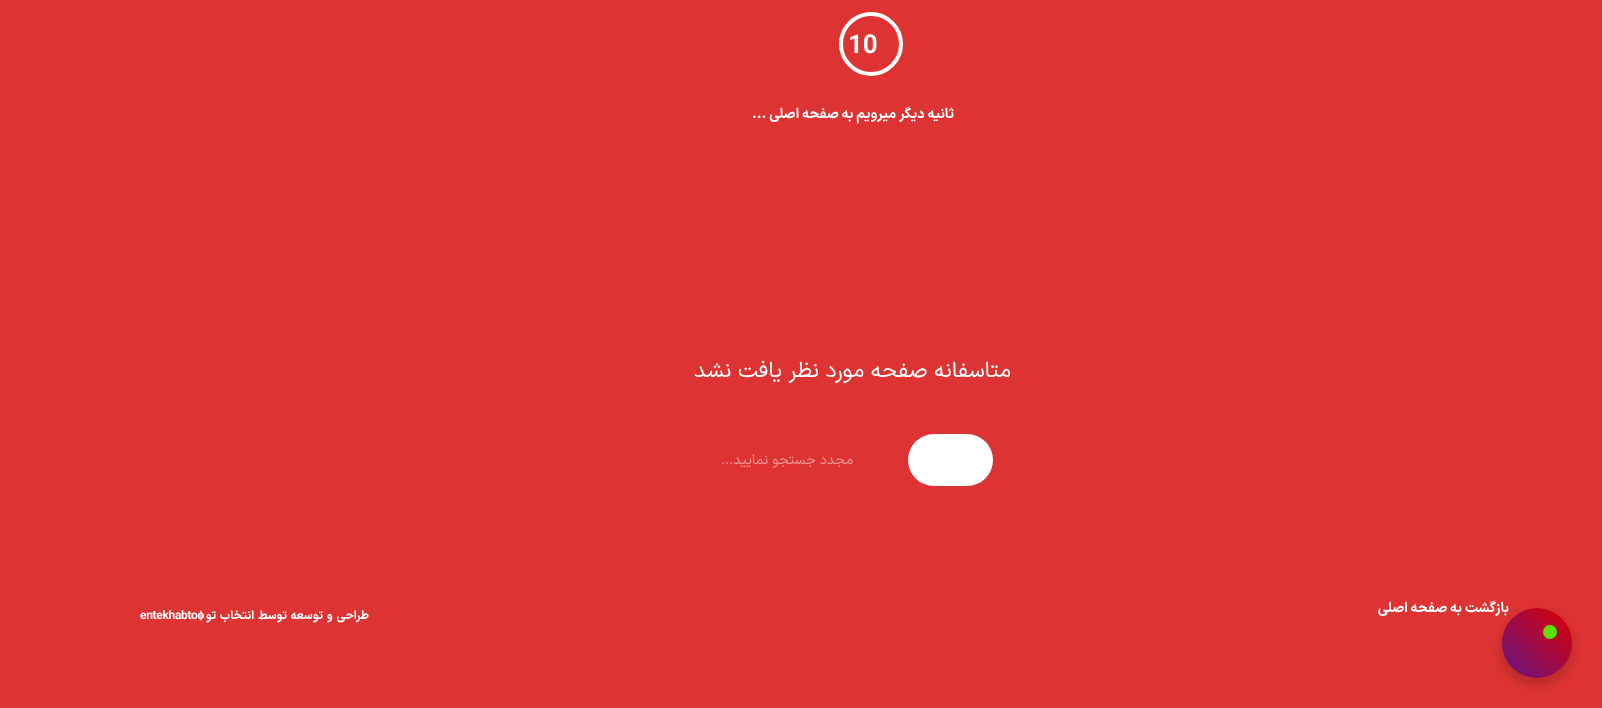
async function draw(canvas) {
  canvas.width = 1602;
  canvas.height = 708;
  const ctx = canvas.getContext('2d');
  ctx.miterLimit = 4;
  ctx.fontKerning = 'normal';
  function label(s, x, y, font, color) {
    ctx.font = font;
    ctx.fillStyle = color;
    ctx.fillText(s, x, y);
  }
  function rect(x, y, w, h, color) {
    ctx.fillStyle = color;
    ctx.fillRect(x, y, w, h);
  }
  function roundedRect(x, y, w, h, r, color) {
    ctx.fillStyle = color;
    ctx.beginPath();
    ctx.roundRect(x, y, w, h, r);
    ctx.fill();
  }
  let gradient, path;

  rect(0, 0, 1602, 708, '#d33');
  path = new Path2D('M871 14C887.5 14 901 27.5 901 44C901 60.5 887.5 74 871 74C854.5 74 841 60.5 841 44C841 28 853.5 15 869.5 14');
  ctx.strokeStyle = '#fff';
  ctx.lineWidth = 4;
  ctx.lineCap = 'round';
  ctx.stroke(path);
  label('10', 848, 53, 'bold 26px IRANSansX', '#fff');
  ctx.direction = 'rtl';
  label('ثانیه دیگر میرویم به صفحه اصلی ...', 954, 118, 'bold 14px IRANSansX', '#fff');
  label('متاسفانه صفحه مورد نظر یافت نشد', 1011, 377, '22px IRANSansX', '#fff');
  roundedRect(908, 434, 85, 52, 26, '#fff');
  label('مجدد جستجو نمایید...', 853, 464, '14px IRANSansX', '#e99');
  label('بازگشت به صفحه اصلی', 1509, 612, 'bold 14px IRANSansX', '#fff');
  ctx.letterSpacing = '-0.3px';
  ctx.wordSpacing = '1.5px';
  label('طراحی و توسعه توسط انتخاب تو |', 369, 619, 'bold 12px IRANSansX', '#fff');
  ctx.wordSpacing = '0px';
  ctx.direction = 'ltr';
  label('entekhabtoo', 140, 619, 'bold 12px IRANSansX', '#fff');
  ctx.fillStyle = '#00000024';
  ctx.filter = 'blur(4px)';
  ctx.beginPath();
  ctx.roundRect(1500, 612, 74, 74, 37);
  ctx.fill();
  ctx.filter = 'none';
  gradient = ctx.createLinearGradient(1502, 678, 1572, 608);
  gradient.addColorStop(0, '#631587');
  gradient.addColorStop(1, '#d00');
  ctx.fillStyle = gradient;
  ctx.beginPath();
  ctx.arc(1537, 643, 35, 0, 2 * Math.PI);
  ctx.fill();
  ctx.fillStyle = '#5bdf00';
  ctx.beginPath();
  ctx.arc(1550, 632, 7, 0, 2 * Math.PI);
  ctx.fill();
}

draw(document.querySelector('canvas'));
